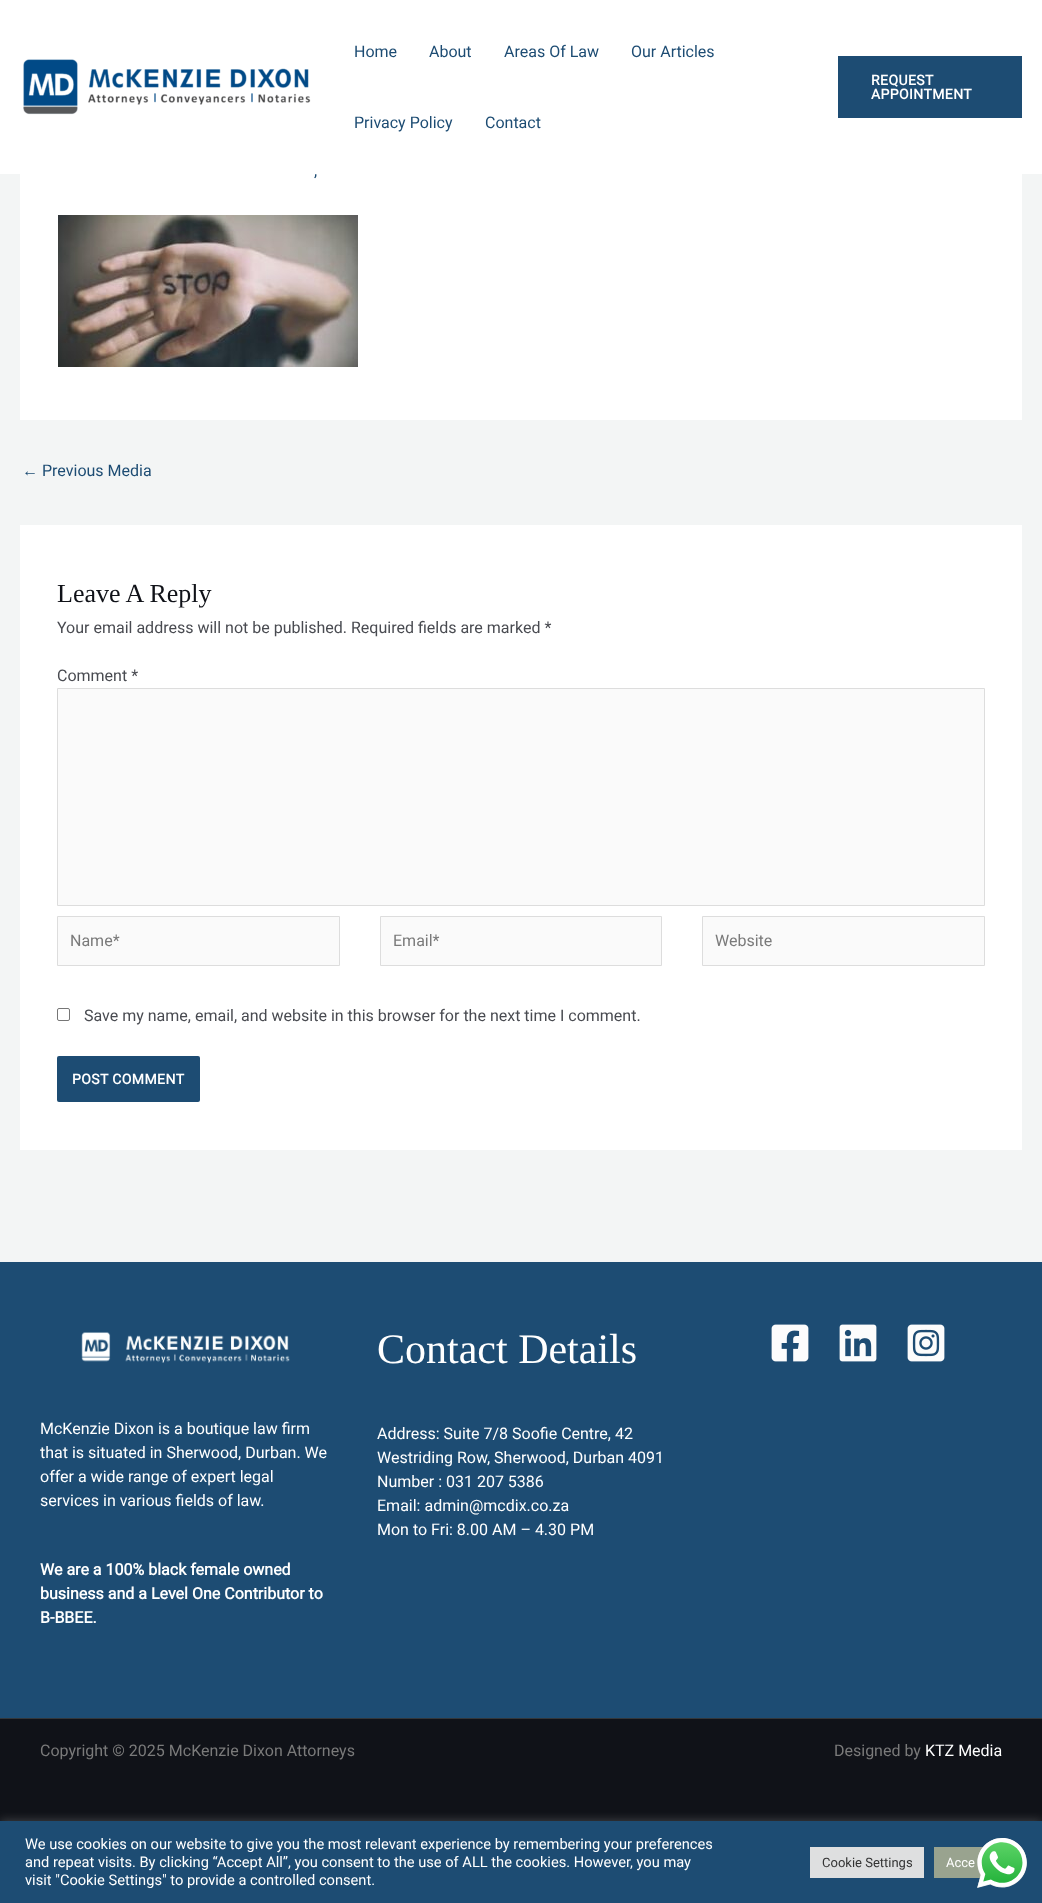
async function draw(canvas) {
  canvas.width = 1042;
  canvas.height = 1903;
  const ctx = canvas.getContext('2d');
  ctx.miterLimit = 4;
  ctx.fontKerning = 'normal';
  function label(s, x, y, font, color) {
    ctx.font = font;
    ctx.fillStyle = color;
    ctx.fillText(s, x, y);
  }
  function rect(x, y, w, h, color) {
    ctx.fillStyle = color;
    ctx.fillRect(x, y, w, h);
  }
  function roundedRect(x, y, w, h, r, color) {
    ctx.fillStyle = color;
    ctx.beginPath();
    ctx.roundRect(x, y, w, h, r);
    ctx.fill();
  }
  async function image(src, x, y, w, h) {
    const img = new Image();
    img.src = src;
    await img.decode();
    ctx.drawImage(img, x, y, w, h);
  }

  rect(0, 0, 1042, 1903, '#f3f5f5');
  rect(0, 0, 1042, 174, '#fff');
  await image('assets/img1.png', 23, 59, 288, 56);
  label('Home', 354, 57, '16px Roboto', '#1d4c73');
  label('About', 429, 57, '16px Roboto', '#1d4c73');
  label('Areas Of Law', 504, 57, '16px Roboto', '#1d4c73');
  label('Our Articles', 631, 57, '16px Roboto', '#1d4c73');
  label('Privacy Policy', 354, 128, '16px Roboto', '#1d4c73');
  label('Contact', 485, 128, '16px Roboto', '#1d4c73');
  rect(838, 56, 184, 62, '#1d4c73');
  ctx.letterSpacing = '0.4px';
  label('REQUEST', 871, 85, 'bold 14px Roboto', '#fff');
  label('APPOINTMENT', 871, 99, 'bold 14px Roboto', '#fff');
  rect(20, 174, 1002, 246, '#fff');
  ctx.letterSpacing = '0px';
  label(',', 314, 176, '16px Roboto', '#1d4c73');
  await image('assets/img2.png', 58, 215, 300, 152);
  label('←', 22, 476, '16px Liberation Sans', '#1d4c73');
  label('Previous Media', 42, 476, '16px Roboto', '#1d4c73');
  rect(20, 525, 1002, 625, '#fff');
  label('Leave A Reply', 57, 602, '26px Liberation Serif', '#101218');
  label('Your email address will not be published. Required fields are marked *', 57, 633, '16px Roboto', '#494b51');
  label('Comment *', 57, 681, '16px Roboto', '#494b51');
  ctx.fillStyle = '#fafafa';
  ctx.beginPath();
  ctx.rect(57.5, 688.5, 927, 217);
  ctx.fill();
  ctx.strokeStyle = '#ddd';
  ctx.stroke();
  ctx.beginPath();
  ctx.rect(57.5, 916.5, 282, 49);
  ctx.fill();
  ctx.stroke();
  label('Name*', 70, 946, '16px Roboto', '#7a7a7a');
  ctx.fillStyle = '#fafafa';
  ctx.beginPath();
  ctx.rect(380.5, 916.5, 281, 49);
  ctx.fill();
  ctx.stroke();
  label('Email*', 393, 946, '16px Roboto', '#7a7a7a');
  ctx.fillStyle = '#fafafa';
  ctx.beginPath();
  ctx.rect(702.5, 916.5, 282, 49);
  ctx.fill();
  ctx.stroke();
  label('Website', 715, 946, '16px Roboto', '#7a7a7a');
  ctx.beginPath();
  ctx.roundRect(57.5, 1008.5, 12, 12, 1.5);
  ctx.strokeStyle = '#767676';
  ctx.stroke();
  label('Save my name, email, and website in this browser for the next time I comment.', 84, 1021, '16px Roboto', '#494b51');
  roundedRect(57, 1056, 143, 46, 2, '#1d4c73');
  ctx.letterSpacing = '0.4px';
  label('POST COMMENT', 72, 1084, 'bold 14px Roboto', '#fff');
  rect(0, 1719, 1042, 102, '#101218');
  rect(0, 1262, 1042, 456, '#1d4c73');
  await image('assets/img3.png', 81, 1332, 209, 31);
  ctx.letterSpacing = '0px';
  label('McKenzie Dixon is a boutique law firm', 40, 1434, '16px Roboto', '#fff');
  label('that is situated in Sherwood, Durban. We', 40, 1458, '16px Roboto', '#fff');
  label('offer a wide range of expert legal', 40, 1482, '16px Roboto', '#fff');
  label('services in various fields of law.', 40, 1506, '16px Roboto', '#fff');
  label('We are a 100% black female owned', 40, 1575, 'bold 16px Roboto', '#fff');
  label('business and a Level One Contributor to', 40, 1599, 'bold 16px Roboto', '#fff');
  label('B-BBEE.', 40, 1623, 'bold 16px Roboto', '#fff');
  label('Contact Details', 377, 1363, '42px Liberation Serif', '#fff');
  label('Address: Suite 7/8 Soofie Centre, 42', 377, 1439, '16px Roboto', '#fff');
  label('Westriding Row, Sherwood, Durban 4091', 377, 1463, '16px Roboto', '#fff');
  label('Number : 031 207 5386', 377, 1487, '16px Roboto', '#fff');
  label('Email: admin@mcdix.co.za', 377, 1511, '16px Roboto', '#fff');
  label('Mon to Fri: 8.00 AM – 4.30 PM', 377, 1535, '16px Roboto', '#fff');
  await image('assets/img4.png', 771, 1324, 38, 38);
  await image('assets/img5.png', 839, 1324, 38, 38);
  await image('assets/img6.png', 907, 1324, 38, 38);
  rect(0, 1718, 1042, 1, '#33373b');
  label('Copyright © 2025 McKenzie Dixon Attorneys', 40, 1756, '16px Roboto', '#7a7a7a');
  label('Designed by', 834, 1756, '16px Roboto', '#7a7a7a');
  label('KTZ Media', 925, 1756, '16px Roboto', '#fff');
  ctx.fillStyle = '#acabab4d';
  ctx.filter = 'blur(5px)';
  ctx.beginPath();
  ctx.rect(0, 1820, 1042, 82);
  ctx.fill();
  ctx.filter = 'none';
  rect(0, 1821, 1042, 82, '#1d4c73');
  label('We use cookies on our website to give you the most relevant experience by remembering your preferences', 25, 1849, '14.65px Roboto', '#fff');
  label('and repeat visits. By clicking “Accept All”, you consent to the use of ALL the cookies. However, you may', 25, 1867, '14.65px Roboto', '#fff');
  label('visit "Cookie Settings" to provide a controlled consent.', 25, 1885, '14.65px Roboto', '#fff');
  rect(810, 1847, 114, 31, '#dedfe0');
  label('Cookie Settings', 822, 1867, '13px Roboto', '#333');
  rect(934, 1847, 49, 31, '#99a38f');
  label('Acce', 946, 1867, '13px Roboto', '#fff');
  await image('assets/img7.png', 977, 1838, 50, 50);
}

draw(document.querySelector('canvas'));
